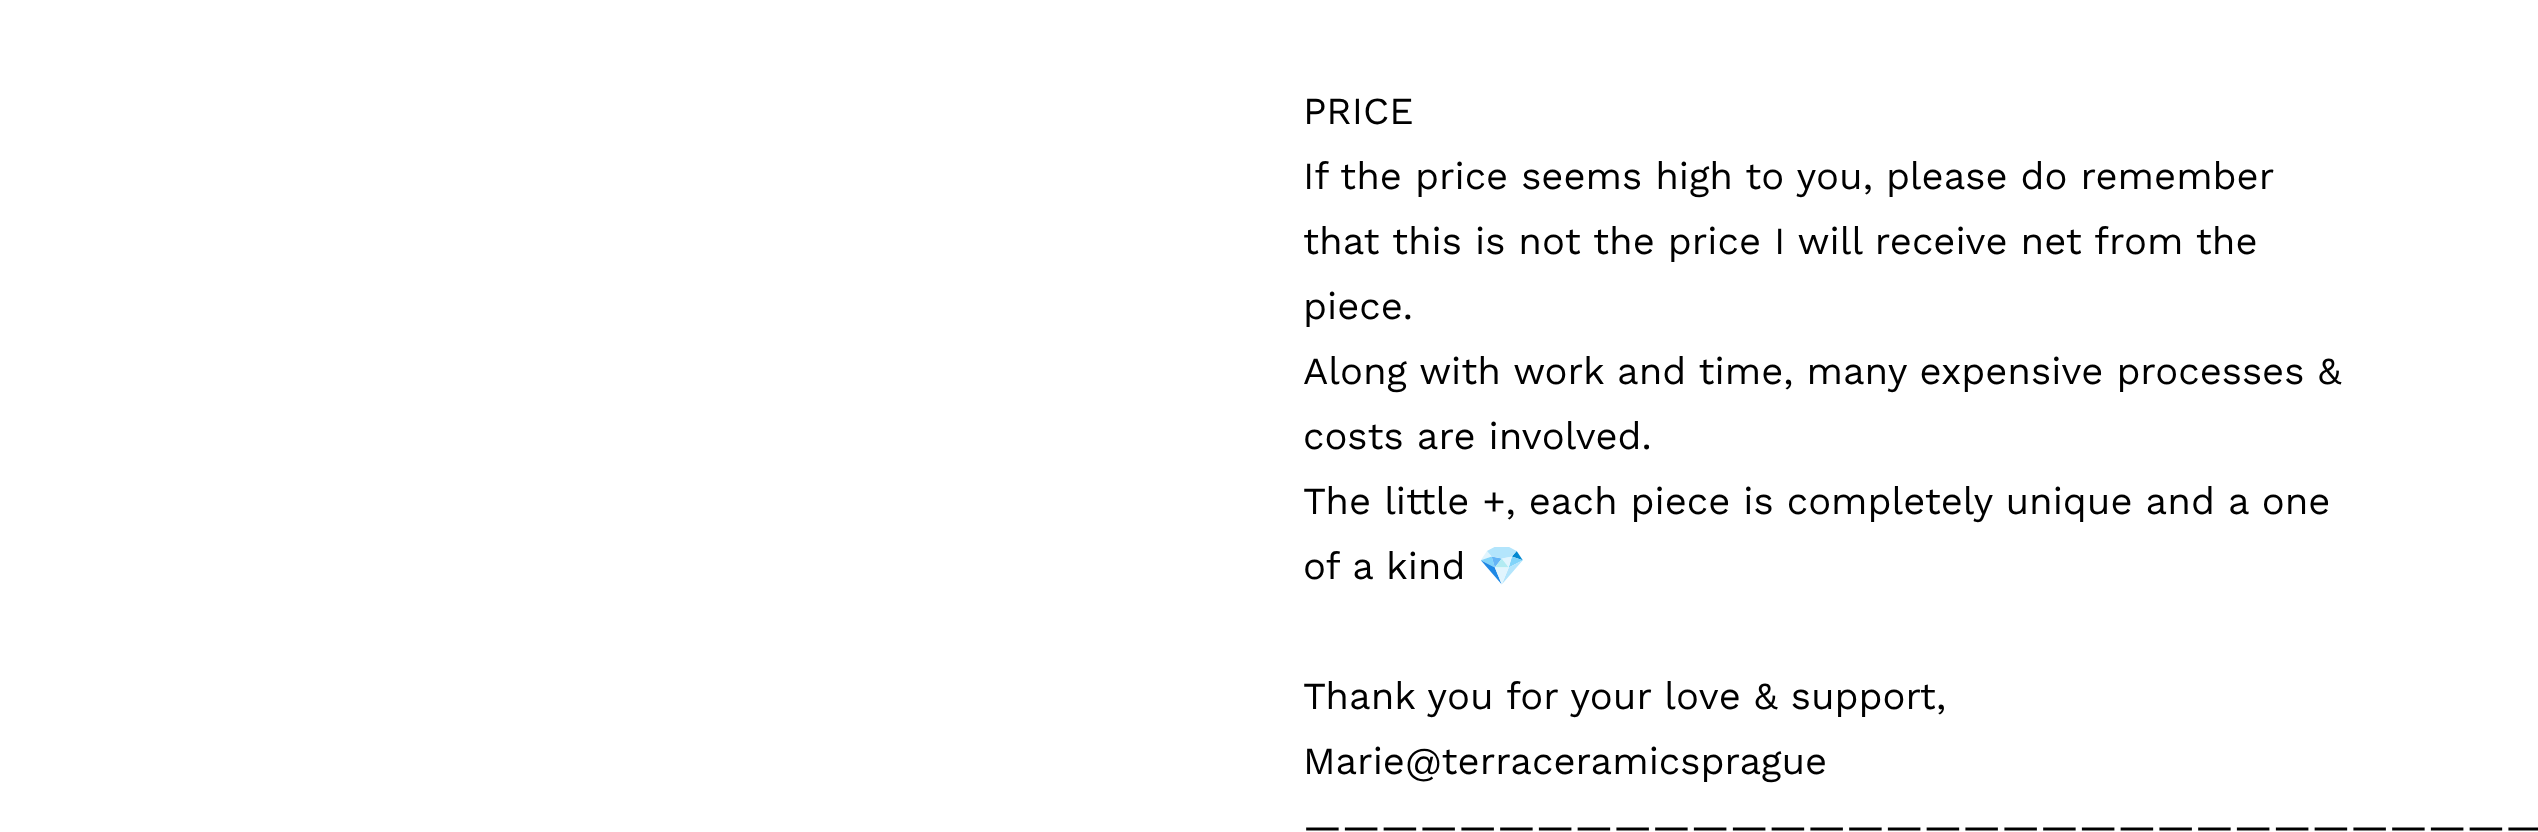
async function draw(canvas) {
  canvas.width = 2538;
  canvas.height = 832;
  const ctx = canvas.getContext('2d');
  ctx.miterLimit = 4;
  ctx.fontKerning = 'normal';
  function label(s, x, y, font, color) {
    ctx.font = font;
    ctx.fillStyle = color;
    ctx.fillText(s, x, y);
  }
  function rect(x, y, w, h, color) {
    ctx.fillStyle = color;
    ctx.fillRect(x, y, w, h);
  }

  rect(0, 0, 2538, 832, '#fff');
  label('PRICE', 1303, 124, '38.25px Work Sans', '#000');
  label('If the price seems high to you, please do remember', 1303, 189, '38.25px Work Sans', '#000');
  label('that this is not the price I will receive net from the', 1303, 254, '38.25px Work Sans', '#000');
  label('piece.', 1303, 319, '38.25px Work Sans', '#000');
  label('Along with work and time, many expensive processes &', 1303, 384, '38.25px Work Sans', '#000');
  label('costs are involved.', 1303, 449, '38.25px Work Sans', '#000');
  label('The little +, each piece is completely unique and a one', 1303, 514, '38.25px Work Sans', '#000');
  label('of a kind', 1303, 579, '38.25px Work Sans', '#000');
  label('💎', 1478, 579, '38.25px Noto Color Emoji', '#000');
  label('Thank you for your love & support,', 1303, 709, '38.25px Work Sans', '#000');
  label('Marie@terraceramicsprague', 1303, 774, '38.25px Work Sans', '#000');
  label('————————————————————————————————', 1303, 839, '38.25px Work Sans', '#000');
}

draw(document.querySelector('canvas'));
